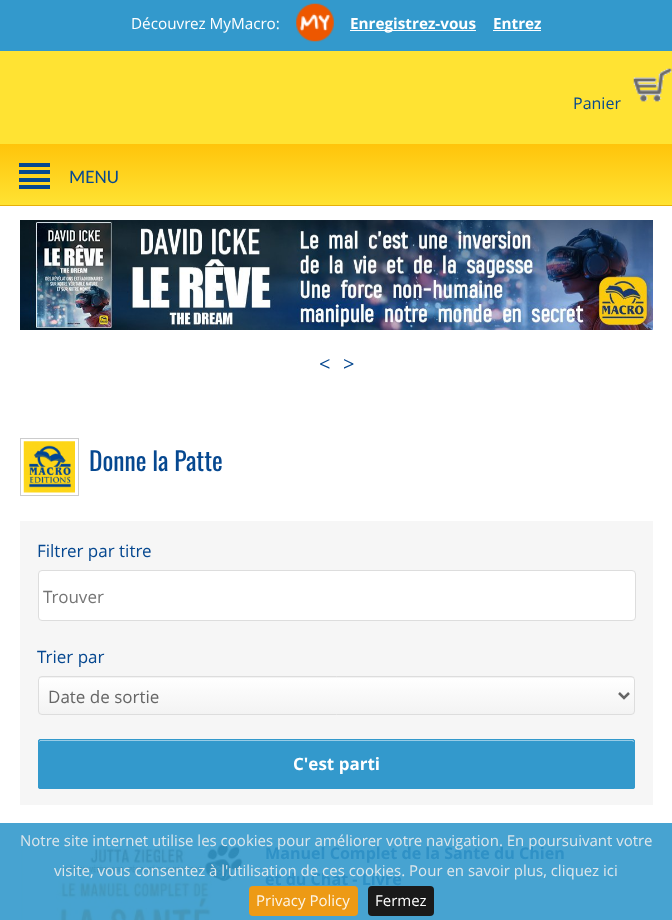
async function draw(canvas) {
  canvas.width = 672;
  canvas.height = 920;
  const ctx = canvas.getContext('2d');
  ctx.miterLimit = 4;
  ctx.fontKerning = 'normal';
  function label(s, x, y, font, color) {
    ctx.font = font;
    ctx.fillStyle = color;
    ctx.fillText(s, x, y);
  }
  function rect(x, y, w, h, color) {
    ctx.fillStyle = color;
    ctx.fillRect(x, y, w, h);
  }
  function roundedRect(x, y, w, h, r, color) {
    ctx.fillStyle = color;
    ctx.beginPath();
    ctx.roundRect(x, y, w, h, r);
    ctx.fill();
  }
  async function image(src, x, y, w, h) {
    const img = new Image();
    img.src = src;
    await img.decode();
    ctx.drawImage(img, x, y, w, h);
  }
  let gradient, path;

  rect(0, 0, 672, 920, '#fff');
  rect(0, 823, 672, 97, '#47a3d1');
  rect(0, 0, 672, 51, '#39c');
  label('Découvrez MyMacro:', 131, 29, '15.25px Open Sans', '#fff');
  await image('assets/img1.png', 296, 3, 38, 39);
  rect(350, 30, 126, 1, '#fff');
  label('Enregistrez-vous', 350, 29, 'bold 15.25px Open Sans', '#fff');
  label('Entrez', 493, 29, 'bold 15.25px Open Sans', '#fff');
  rect(493, 30, 48, 1, '#fff');
  rect(0, 51, 672, 93, '#ffe333');
  await image('assets/img2.png', 633, 68, 39, 34);
  label('Panier', 573, 109, '16px Open Sans', '#064890');
  gradient = ctx.createLinearGradient(336, 144, 336, 206);
  gradient.addColorStop(0, '#ffc40b');
  gradient.addColorStop(1, '#ffe333');
  ctx.fillStyle = gradient;
  ctx.fillRect(0, 144, 672, 61);
  rect(0, 205, 672, 1, '#e6b00a');
  rect(19, 163, 31, 4, '#064890');
  rect(19, 170, 31, 4, '#064890');
  rect(19, 178, 31, 4, '#064890');
  rect(19, 185, 31, 4, '#064890');
  label('MENU', 69, 183, '19px Carlito', '#064890');
  await image('assets/img3.png', 20, 220, 633, 110);
  label('<', 319, 371, '20px Open Sans', '#064890');
  label('>', 343, 371, '20px Open Sans', '#064890');
  ctx.strokeStyle = '#ccc';
  ctx.strokeRect(20.5, 438.5, 58, 57);
  await image('assets/img4.png', 23, 441, 52, 52);
  label('Donne la Patte', 89, 471, '25.5px Oswald', '#064890');
  rect(20, 521, 633, 284, '#f6f6f6');
  label('Filtrer par titre', 37, 557, '17px Open Sans', '#064890');
  ctx.fillStyle = '#fff';
  ctx.beginPath();
  ctx.roundRect(38.5, 570.5, 597, 50, 3.5);
  ctx.fill();
  ctx.strokeStyle = '#ddd';
  ctx.stroke();
  label('Trouver', 43, 603, '17px Open Sans', '#757575');
  label('Trier par', 37, 663, '17px Open Sans', '#064890');
  ctx.save();
  ctx.beginPath();
  ctx.roundRect(38, 676, 597, 39, 4);
  ctx.clip();
  gradient = ctx.createLinearGradient(336, 641, 336, 678);
  gradient.addColorStop(0, '#fff');
  gradient.addColorStop(1, '#f3f3f3');
  ctx.fillStyle = gradient;
  ctx.fillRect(38, 676, 597, 2);
  gradient = ctx.createLinearGradient(336, 678, 336, 714);
  gradient.addColorStop(0, '#fff');
  gradient.addColorStop(1, '#f3f3f3');
  ctx.fillStyle = gradient;
  ctx.fillRect(38, 678, 597, 36);
  ctx.restore();
  ctx.beginPath();
  ctx.roundRect(38.5, 676.5, 596, 38, 3.5);
  ctx.stroke();
  path = new Path2D('M619 693L624 698L629 693');
  ctx.strokeStyle = '#666';
  ctx.lineWidth = 2.5;
  ctx.stroke(path);
  label('Date de sortie', 48, 703, '17px Open Sans', '#666');
  roundedRect(38, 739, 597, 50, 2.5, '#39c');
  ctx.fillStyle = '#99cce6';
  path = new Path2D('M40 741H632L634 742C634 741 634 740 633 740H40L39 741V742Z');
  ctx.fill(path);
  ctx.beginPath();
  ctx.roundRect(38.5, 739.5, 596, 49, 2);
  ctx.strokeStyle = '#39c';
  ctx.lineWidth = 1;
  ctx.stroke();
  label('C\'est parti', 293, 770, 'bold 17px Open Sans', '#fff');
  await image('assets/img5.png', 21, 838, 226, 82);
  label('Manuel Complet de la Sante du Chien', 265, 859, 'bold 16.1px Open Sans', '#2f91c6');
  label('et du Chat - Livre', 265, 885, 'bold 16.1px Open Sans', '#2f91c6');
  label('Notre site internet utilise les cookies pour améliorer votre navigation. En poursuivant votre', 20, 846, '15px Open Sans', '#dde6eb');
  label('visite, vous consentez à l\'utilisation de ces cookies. Pour en savoir plus, cliquez ici', 54, 876, '15px Open Sans', '#dde6eb');
  roundedRect(249, 886, 109, 30, 4, '#ff9900e6');
  label('Privacy Policy', 256, 906, '15px Open Sans', '#fdf5e8');
  roundedRect(368, 886, 66, 30, 4, '#1a1a1a');
  label('Fermez', 375, 906, '15px Open Sans', '#fff');
}

draw(document.querySelector('canvas'));
